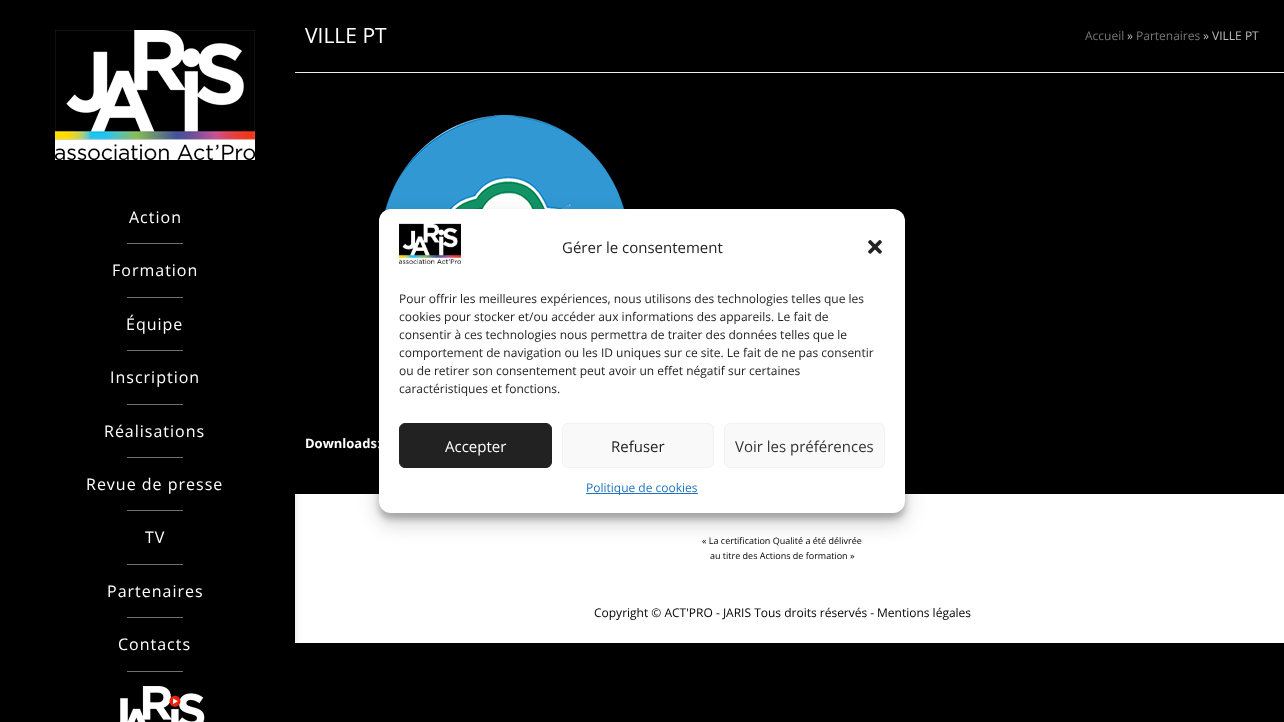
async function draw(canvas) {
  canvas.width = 1284;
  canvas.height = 722;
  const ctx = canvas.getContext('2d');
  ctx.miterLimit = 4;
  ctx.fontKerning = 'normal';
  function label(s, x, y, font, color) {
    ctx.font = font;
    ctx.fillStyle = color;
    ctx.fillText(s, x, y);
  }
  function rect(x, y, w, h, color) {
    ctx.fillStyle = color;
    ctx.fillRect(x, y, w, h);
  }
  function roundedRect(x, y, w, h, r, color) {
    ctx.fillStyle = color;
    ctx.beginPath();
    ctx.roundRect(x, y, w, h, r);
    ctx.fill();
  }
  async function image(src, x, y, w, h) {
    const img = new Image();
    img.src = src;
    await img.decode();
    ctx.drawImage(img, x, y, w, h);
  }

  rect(0, 0, 1284, 722, '#000');
  rect(295, 72, 989, 1, '#eee');
  rect(295, 494, 989, 149, '#fff');
  ctx.fillStyle = '#0000001a';
  ctx.filter = 'blur(3.5px)';
  ctx.beginPath();
  ctx.rect(15, 0, 280, 722);
  ctx.fill();
  ctx.filter = 'none';
  await image('assets/img1.png', 55, 30, 200, 130);
  ctx.letterSpacing = '1px';
  label('Action', 129, 223, '16px Open Sans', '#fff');
  rect(127, 243, 56, 1, '#6f6f6f');
  label('Formation', 112, 276, '16px Open Sans', '#fff');
  rect(127, 297, 56, 1, '#6f6f6f');
  label('Équipe', 126, 330, '16px Open Sans', '#fff');
  rect(127, 350, 56, 1, '#6f6f6f');
  label('Inscription', 110, 383, '16px Open Sans', '#fff');
  rect(127, 404, 56, 1, '#6f6f6f');
  label('Réalisations', 104, 437, '16px Open Sans', '#fff');
  rect(127, 457, 56, 1, '#6f6f6f');
  label('Revue de presse', 86, 490, '16px Open Sans', '#fff');
  rect(127, 510, 56, 1, '#6f6f6f');
  label('TV', 145, 543, '16px Open Sans', '#fff');
  rect(127, 564, 56, 1, '#6f6f6f');
  label('Partenaires', 107, 597, '16px Open Sans', '#fff');
  rect(127, 617, 56, 1, '#6f6f6f');
  label('Contacts', 118, 650, '16px Open Sans', '#fff');
  rect(127, 671, 56, 1, '#6f6f6f');
  await image('assets/img2.png', 120, 686, 85, 36);
  ctx.letterSpacing = '0px';
  label('VILLE PT', 305, 43, '21px Open Sans', '#fff');
  label('Accueil', 1085, 40, '12px Open Sans', '#777');
  label('»', 1127, 40, '12px Open Sans', '#bcbcbc');
  label('Partenaires', 1136, 40, '12px Open Sans', '#777');
  label('» VILLE PT', 1203, 40, '12px Open Sans', '#bcbcbc');
  await image('assets/img3.png', 384, 115, 241, 97);
  label('Downloads', 305, 448, 'bold 13px Open Sans', '#fff');
  label(':', 377, 448, '13px Open Sans', '#fff');
  label('« La certification Qualité a été délivrée', 702, 544, '9px Open Sans', '#020202');
  label('au titre des Actions de formation »', 710, 559, '9px Open Sans', '#020202');
  label('Copyright © ACT\'PRO - JARIS Tous droits réservés -', 594, 617, '12px Open Sans', '#020202');
  label('Mentions légales', 877, 617, '12px Open Sans', '#020202');
  ctx.fillStyle = '#0000003b';
  ctx.filter = 'blur(3px)';
  ctx.beginPath();
  ctx.roundRect(379, 215, 526, 304, 12);
  ctx.fill();
  ctx.filter = 'none';
  ctx.fillStyle = '#00000030';
  ctx.filter = 'blur(10px)';
  ctx.beginPath();
  ctx.roundRect(379, 219, 526, 304, 12);
  ctx.fill();
  ctx.filter = 'none';
  roundedRect(379, 209, 526, 304, 12, '#fff');
  await image('assets/img4.png', 399, 223, 62, 41);
  label('Gérer le consentement', 562, 253, '15px Open Sans', '#222');
  await image('assets/img5.png', 868, 240, 14, 14);
  label('Pour offrir les meilleures expériences, nous utilisons des technologies telles que les', 399, 303, '12px Open Sans', '#222');
  label('cookies pour stocker et/ou accéder aux informations des appareils. Le fait de', 399, 321, '12px Open Sans', '#222');
  label('consentir à ces technologies nous permettra de traiter des données telles que le', 399, 339, '12px Open Sans', '#222');
  label('comportement de navigation ou les ID uniques sur ce site. Le fait de ne pas consentir', 399, 357, '12px Open Sans', '#222');
  label('ou de retirer son consentement peut avoir un effet négatif sur certaines', 399, 375, '12px Open Sans', '#222');
  label('caractéristiques et fonctions.', 399, 393, '12px Open Sans', '#222');
  ctx.beginPath();
  ctx.roundRect(399.5, 423.5, 152, 44, 5.5);
  ctx.fill();
  ctx.strokeStyle = '#222';
  ctx.stroke();
  label('Accepter', 445, 452, '15px Open Sans', '#fff');
  ctx.fillStyle = '#f9f9f9';
  ctx.beginPath();
  ctx.roundRect(562.5, 423.5, 151, 44, 5.5);
  ctx.fill();
  ctx.strokeStyle = '#f2f2f2';
  ctx.stroke();
  label('Refuser', 611, 452, '15px Open Sans', '#222');
  ctx.fillStyle = '#f9f9f9';
  ctx.beginPath();
  ctx.roundRect(724.5, 423.5, 160, 44, 5.5);
  ctx.fill();
  ctx.stroke();
  label('Voir les préférences', 735, 452, '15px Open Sans', '#333');
  rect(586, 493, 112, 1, '#1e73be');
  label('Politique de cookies', 586, 492, '12px Open Sans', '#1e73be');
}

draw(document.querySelector('canvas'));
